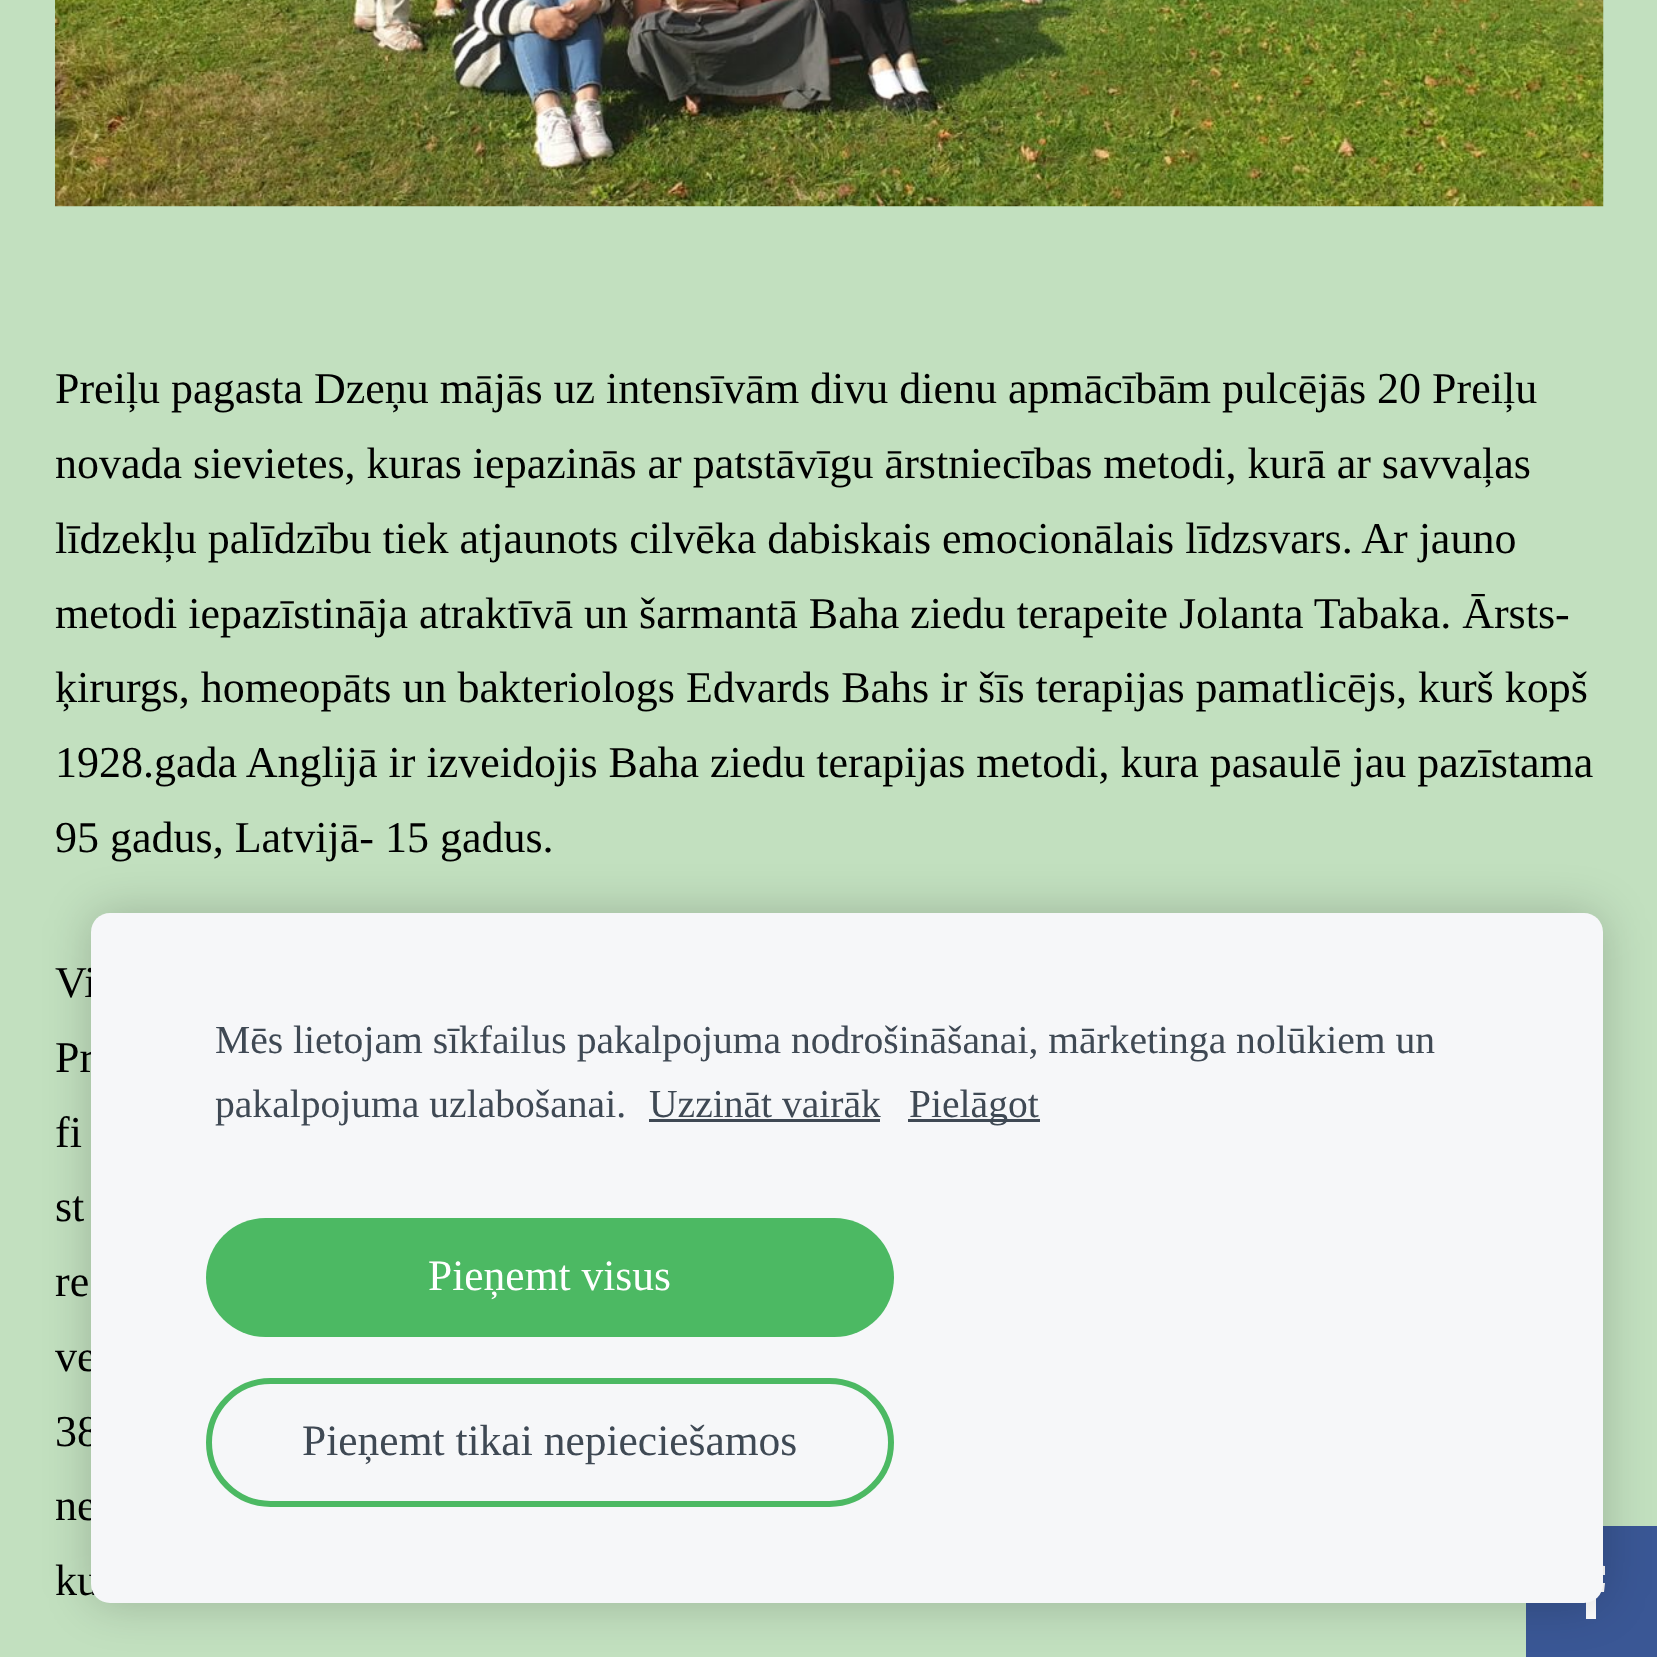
async function draw(canvas) {
  canvas.width = 1657;
  canvas.height = 1657;
  const ctx = canvas.getContext('2d');
  ctx.miterLimit = 4;
  ctx.fontKerning = 'normal';
  function label(s, x, y, font, color) {
    ctx.font = font;
    ctx.fillStyle = color;
    ctx.fillText(s, x, y);
  }
  function rect(x, y, w, h, color) {
    ctx.fillStyle = color;
    ctx.fillRect(x, y, w, h);
  }
  function roundedRect(x, y, w, h, r, color) {
    ctx.fillStyle = color;
    ctx.beginPath();
    ctx.roundRect(x, y, w, h, r);
    ctx.fill();
  }
  async function image(src, x, y, w, h) {
    const img = new Image();
    img.src = src;
    await img.decode();
    ctx.drawImage(img, x, y, w, h);
  }
  let path;

  rect(0, 0, 1657, 1657, '#c2e0bf');
  await image('assets/img1.png', 55, 0, 1549, 207);
  label('Preiļu pagasta Dzeņu mājās uz intensīvām divu dienu apmācībām pulcējās 20 Preiļu', 55, 403, '44px Liberation Serif', '#000');
  label('novada sievietes, kuras iepazinās ar patstāvīgu ārstniecības metodi, kurā ar savvaļas', 55, 478, '44px Liberation Serif', '#000');
  label('līdzekļu palīdzību tiek atjaunots cilvēka dabiskais emocionālais līdzsvars. Ar jauno', 55, 553, '44px Liberation Serif', '#000');
  label('metodi iepazīstināja atraktīvā un šarmantā Baha ziedu terapeite Jolanta Tabaka. Ārsts-', 55, 628, '44px Liberation Serif', '#000');
  label('ķirurgs, homeopāts un bakteriologs Edvards Bahs ir šīs terapijas pamatlicējs, kurš kopš', 55, 702, '44px Liberation Serif', '#000');
  label('1928.gada Anglijā ir izveidojis Baha ziedu terapijas metodi, kura pasaulē jau pazīstama', 55, 777, '44px Liberation Serif', '#000');
  label('95 gadus, Latvijā- 15 gadus.', 55, 852, '44px Liberation Serif', '#000');
  label('Vi', 55, 997, '44px Liberation Serif', '#000');
  label('Pr', 55, 1072, '44px Liberation Serif', '#000');
  label('fi', 55, 1147, '44px Liberation Serif', '#000');
  label('st', 55, 1221, '44px Liberation Serif', '#000');
  label('re', 55, 1296, '44px Liberation Serif', '#000');
  label('ve', 55, 1371, '44px Liberation Serif', '#000');
  label('38', 55, 1446, '44px Liberation Serif', '#000');
  label('ne', 55, 1520, '44px Liberation Serif', '#000');
  label('ku', 55, 1595, '44px Liberation Serif', '#000');
  rect(1526, 1526, 131, 131, '#3a5795');
  ctx.fillStyle = '#fff';
  path = new Path2D('M1586 1583H1580V1592H1586V1619H1596V1592H1604L1605 1583H1596C1596 1574 1595 1575 1605 1575V1566C1598 1566 1587 1564 1586 1574Z');
  ctx.fill(path);
  ctx.fillStyle = '#00000033';
  ctx.filter = 'blur(23.5px)';
  ctx.beginPath();
  ctx.roundRect(91, 913, 1512, 690, 19);
  ctx.fill();
  ctx.filter = 'none';
  roundedRect(91, 913, 1512, 690, 19, '#f6f7f9');
  label('Mēs lietojam sīkfailus pakalpojuma nodrošināšanai, mārketinga nolūkiem un', 215, 1053, '39.6px Liberation Serif', '#3f4954');
  label('pakalpojuma uzlabošanai.', 215, 1117, '39.6px Liberation Serif', '#3f4954');
  label('Uzzināt vairāk', 649, 1117, '39.6px Liberation Serif', '#3f4954');
  rect(649, 1119, 231, 3, '#3f4954');
  rect(908, 1119, 132, 3, '#3f4954');
  label('Pielāgot', 909, 1117, '39.6px Liberation Serif', '#3f4954');
  roundedRect(206, 1218, 688, 119, 59.5, '#4cb963');
  label('Pieņemt visus', 428, 1290, '43.5px Liberation Serif', '#fff');
  ctx.beginPath();
  ctx.roundRect(209, 1381, 682, 123, 61.5);
  ctx.strokeStyle = '#4cb963';
  ctx.lineWidth = 6;
  ctx.stroke();
  label('Pieņemt tikai nepieciešamos', 302, 1455, '43.5px Liberation Serif', '#3f4954');
}

draw(document.querySelector('canvas'));
